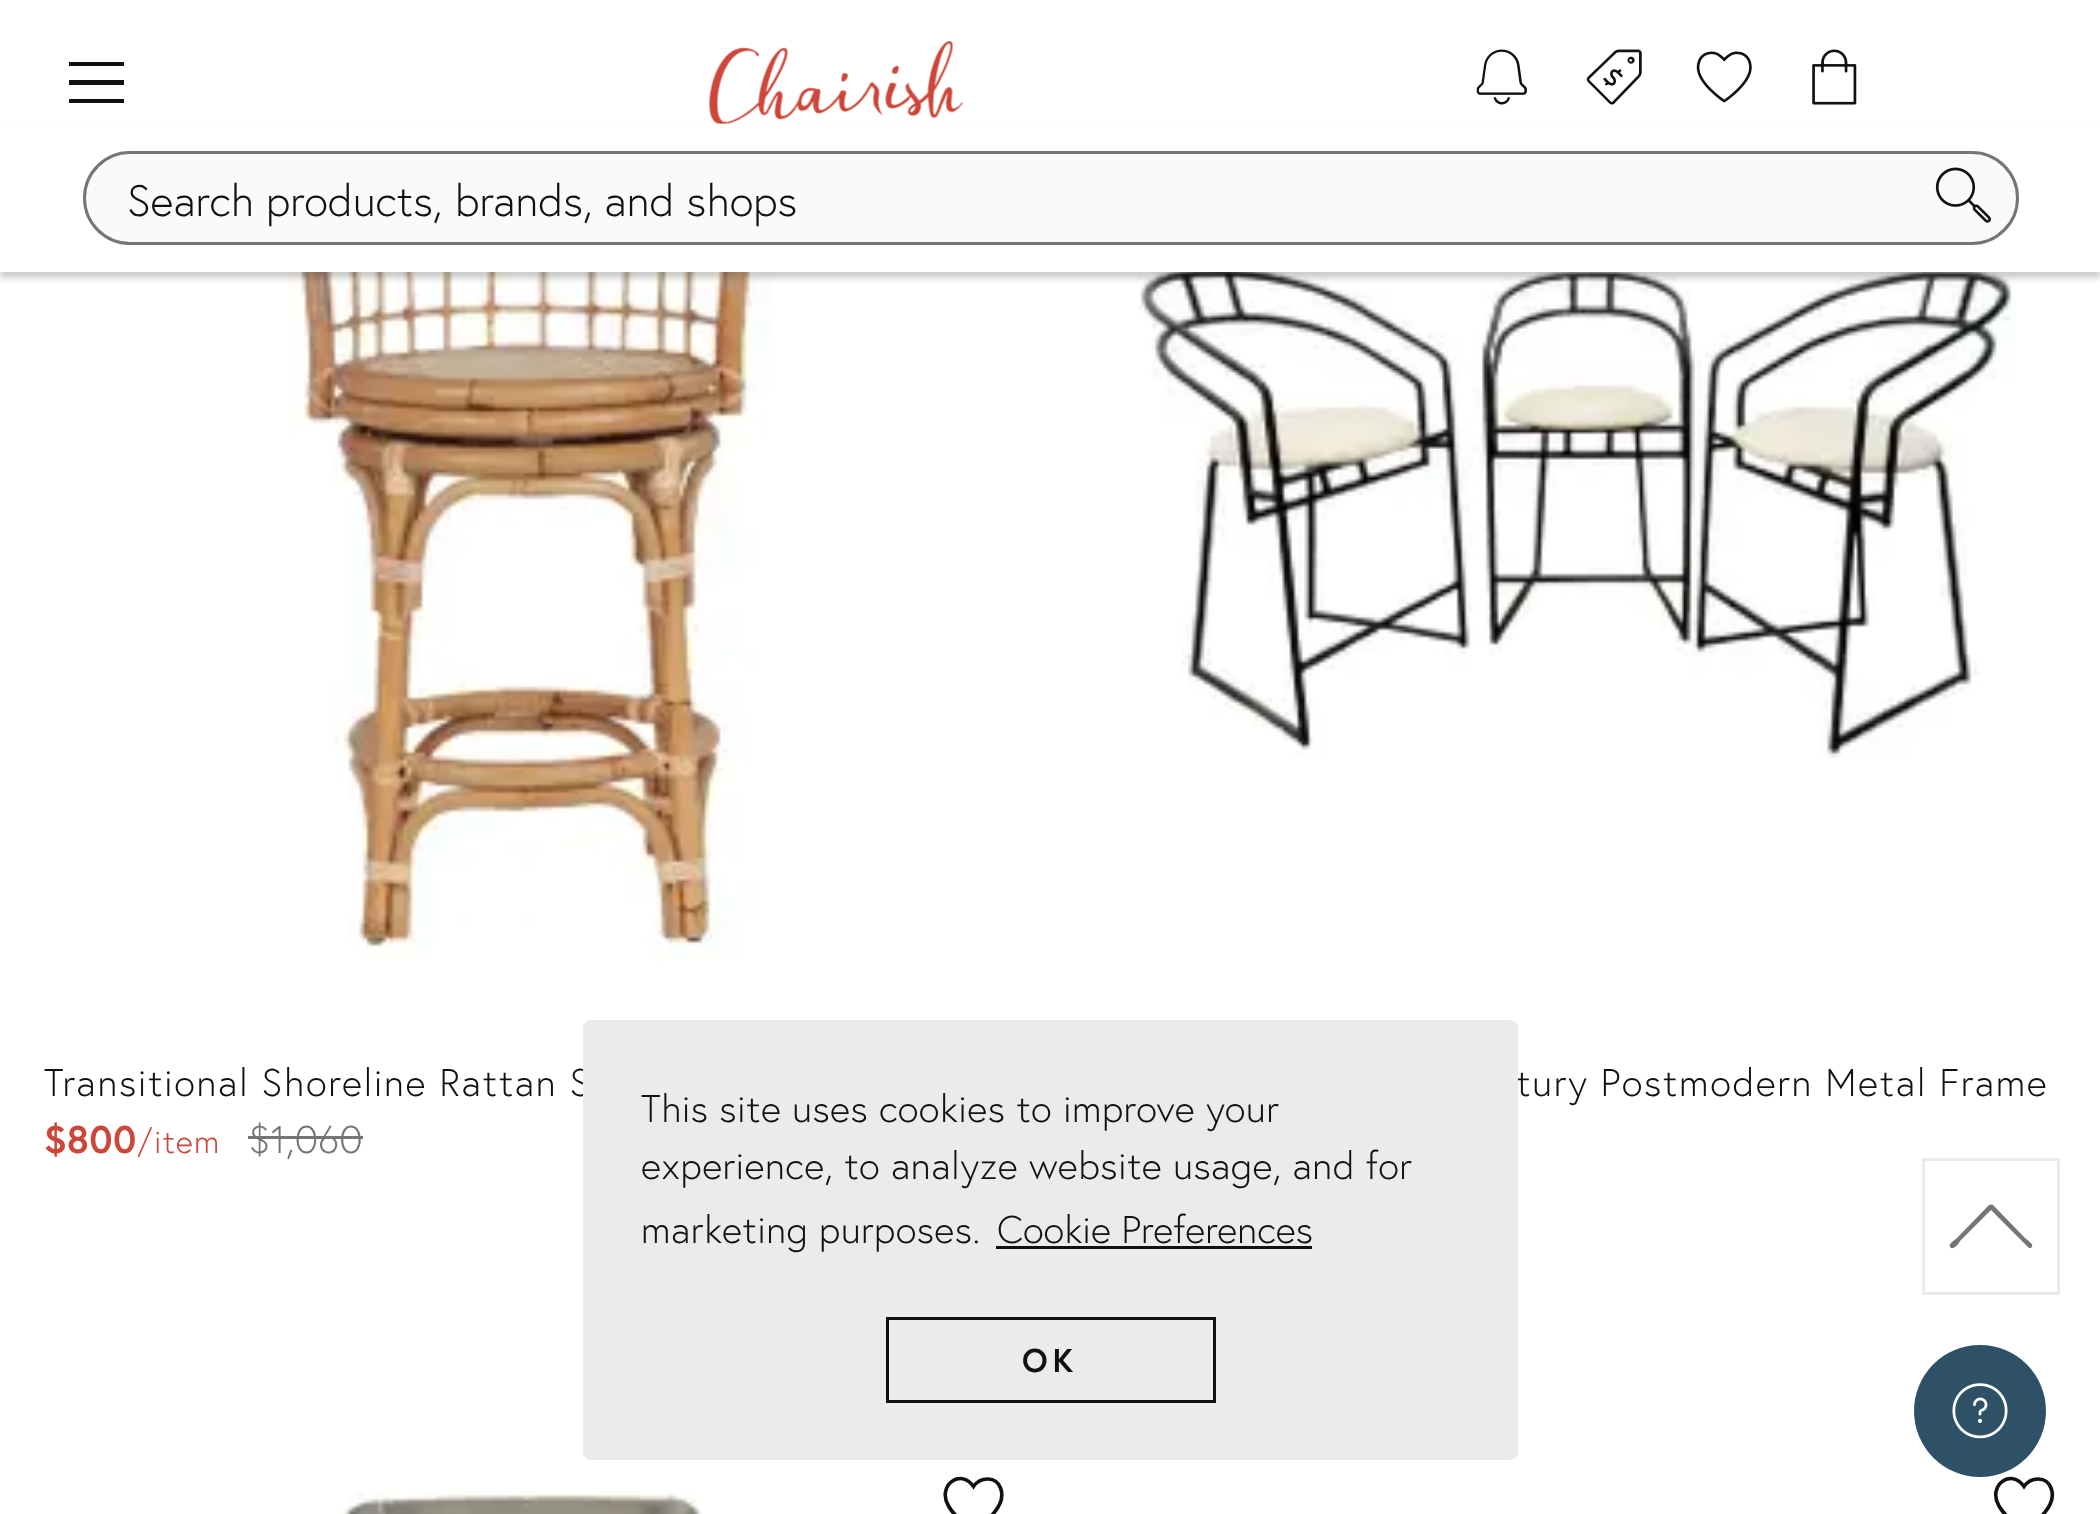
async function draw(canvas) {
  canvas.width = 2100;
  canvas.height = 1514;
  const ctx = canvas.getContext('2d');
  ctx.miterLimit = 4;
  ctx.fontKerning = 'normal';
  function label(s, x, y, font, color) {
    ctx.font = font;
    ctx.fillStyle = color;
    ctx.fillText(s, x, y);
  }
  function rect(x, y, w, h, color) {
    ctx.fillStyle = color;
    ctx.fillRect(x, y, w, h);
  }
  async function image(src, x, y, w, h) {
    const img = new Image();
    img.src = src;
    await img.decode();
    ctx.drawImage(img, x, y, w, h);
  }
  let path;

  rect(0, 0, 2100, 1514, '#fff');
  ctx.fillStyle = '#111';
  path = new Path2D('M69 99H124V103H69ZM69 62H124V66H69ZM69 80H124V85H69Z');
  ctx.fill(path);
  await image('assets/img1.png', 709, 41, 254, 83);
  await image('assets/img2.png', 1476, 49, 51, 56);
  await image('assets/img3.png', 1586, 49, 56, 56);
  await image('assets/img4.png', 1696, 51, 56, 52);
  await image('assets/img5.png', 1812, 49, 45, 56);
  await image('assets/img7.png', 289, 272, 482, 689);
  await image('assets/img8.png', 1138, 272, 879, 486);
  ctx.fillStyle = '#00000033';
  ctx.filter = 'blur(3px)';
  ctx.beginPath();
  ctx.rect(0, 129, 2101, 149);
  ctx.fill();
  ctx.filter = 'none';
  rect(0, 124, 2100, 148, '#fff');
  ctx.fillStyle = '#fafafa';
  ctx.beginPath();
  ctx.roundRect(84.5, 152.5, 1933, 91, 45.5);
  ctx.fill();
  ctx.strokeStyle = '#757575';
  ctx.lineWidth = 3;
  ctx.stroke();
  label('Search products, brands, and shops', 127, 216, '300 44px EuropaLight', '#111');
  await image('assets/img6.png', 1935, 167, 56, 56);
  ctx.letterSpacing = '1.6px';
  label('Transitional Shoreline Rattan S', 44, 1096, '300 38.5px EuropaLight', '#111');
  ctx.letterSpacing = '0.4px';
  label('$800', 44, 1153, 'bold 38.5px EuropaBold', '#cc4639');
  ctx.letterSpacing = '1px';
  label('/item', 137, 1153, '300 33px EuropaLight', '#cc4639');
  ctx.letterSpacing = '0.4px';
  label('$1,060', 248, 1153, '300 38.5px EuropaLight', '#757575');
  rect(248, 1136, 115, 3, '#757575');
  ctx.letterSpacing = '1.6px';
  label('tury Postmodern Metal Frame', 1516, 1096, '300 38.5px EuropaLight', '#111');
  await image('assets/img9.png', 341, 1491, 362, 23);
  path = new Path2D('M1000.5 1488C996 1476 980.5 1476.5 973.5 1486.5C960.5 1467.5 936.5 1486 948.5 1506C954.5 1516.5 964.5 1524 973.5 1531C985.5 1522 1007.5 1505.5 1000.5 1488Z');
  ctx.strokeStyle = '#111';
  ctx.lineWidth = 3.6;
  ctx.stroke(path);
  path = new Path2D('M2051 1488C2046.5 1476 2031 1476.5 2024 1486.5C2011 1467.5 1987 1486 1999 1506C2005 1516.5 2015 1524 2024 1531C2036 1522 2058 1505.5 2051 1488Z');
  ctx.stroke(path);
  ctx.strokeStyle = '#ebebeb';
  ctx.lineWidth = 3;
  ctx.strokeRect(1923.5, 1159.5, 135, 134);
  ctx.fillStyle = '#757575';
  path = new Path2D('M1989 1205C1990 1205 1992 1204 1993 1205L2025 1238C2027 1240 2034 1244 2032 1247C2031 1248 2030 1248 2029 1248L1991 1210L1960 1241C1960 1242 1954 1250 1951 1248C1947 1245 1953 1241 1957 1238Z');
  ctx.fill(path);
  ctx.fillStyle = '#ebebeb';
  ctx.beginPath();
  ctx.roundRect(584.5, 1021.5, 932, 437, 6.5);
  ctx.fill();
  ctx.stroke();
  ctx.letterSpacing = '0.4px';
  label('This site uses cookies to improve your', 641, 1122, '300 38.5px EuropaLight', '#111');
  label('experience, to analyze website usage, and for', 641, 1179, '300 38.5px EuropaLight', '#111');
  label('marketing purposes.', 641, 1243, '300 38.5px EuropaLight', '#111');
  ctx.letterSpacing = '0px';
  label('Cookie Preferences', 997, 1243, '300 38.5px EuropaLight', '#111');
  rect(996, 1246, 316, 3, '#111');
  ctx.strokeStyle = '#111';
  ctx.strokeRect(887.5, 1318.5, 327, 83);
  ctx.letterSpacing = '5px';
  label('OK', 1022, 1372, 'bold 33px EuropaBold', '#111');
  ctx.fillStyle = '#2e5167';
  ctx.beginPath();
  ctx.arc(1980, 1411, 66, 0, 2 * Math.PI);
  ctx.fill();
  await image('assets/img10.png', 1952, 1383, 56, 56);
}

draw(document.querySelector('canvas'));
